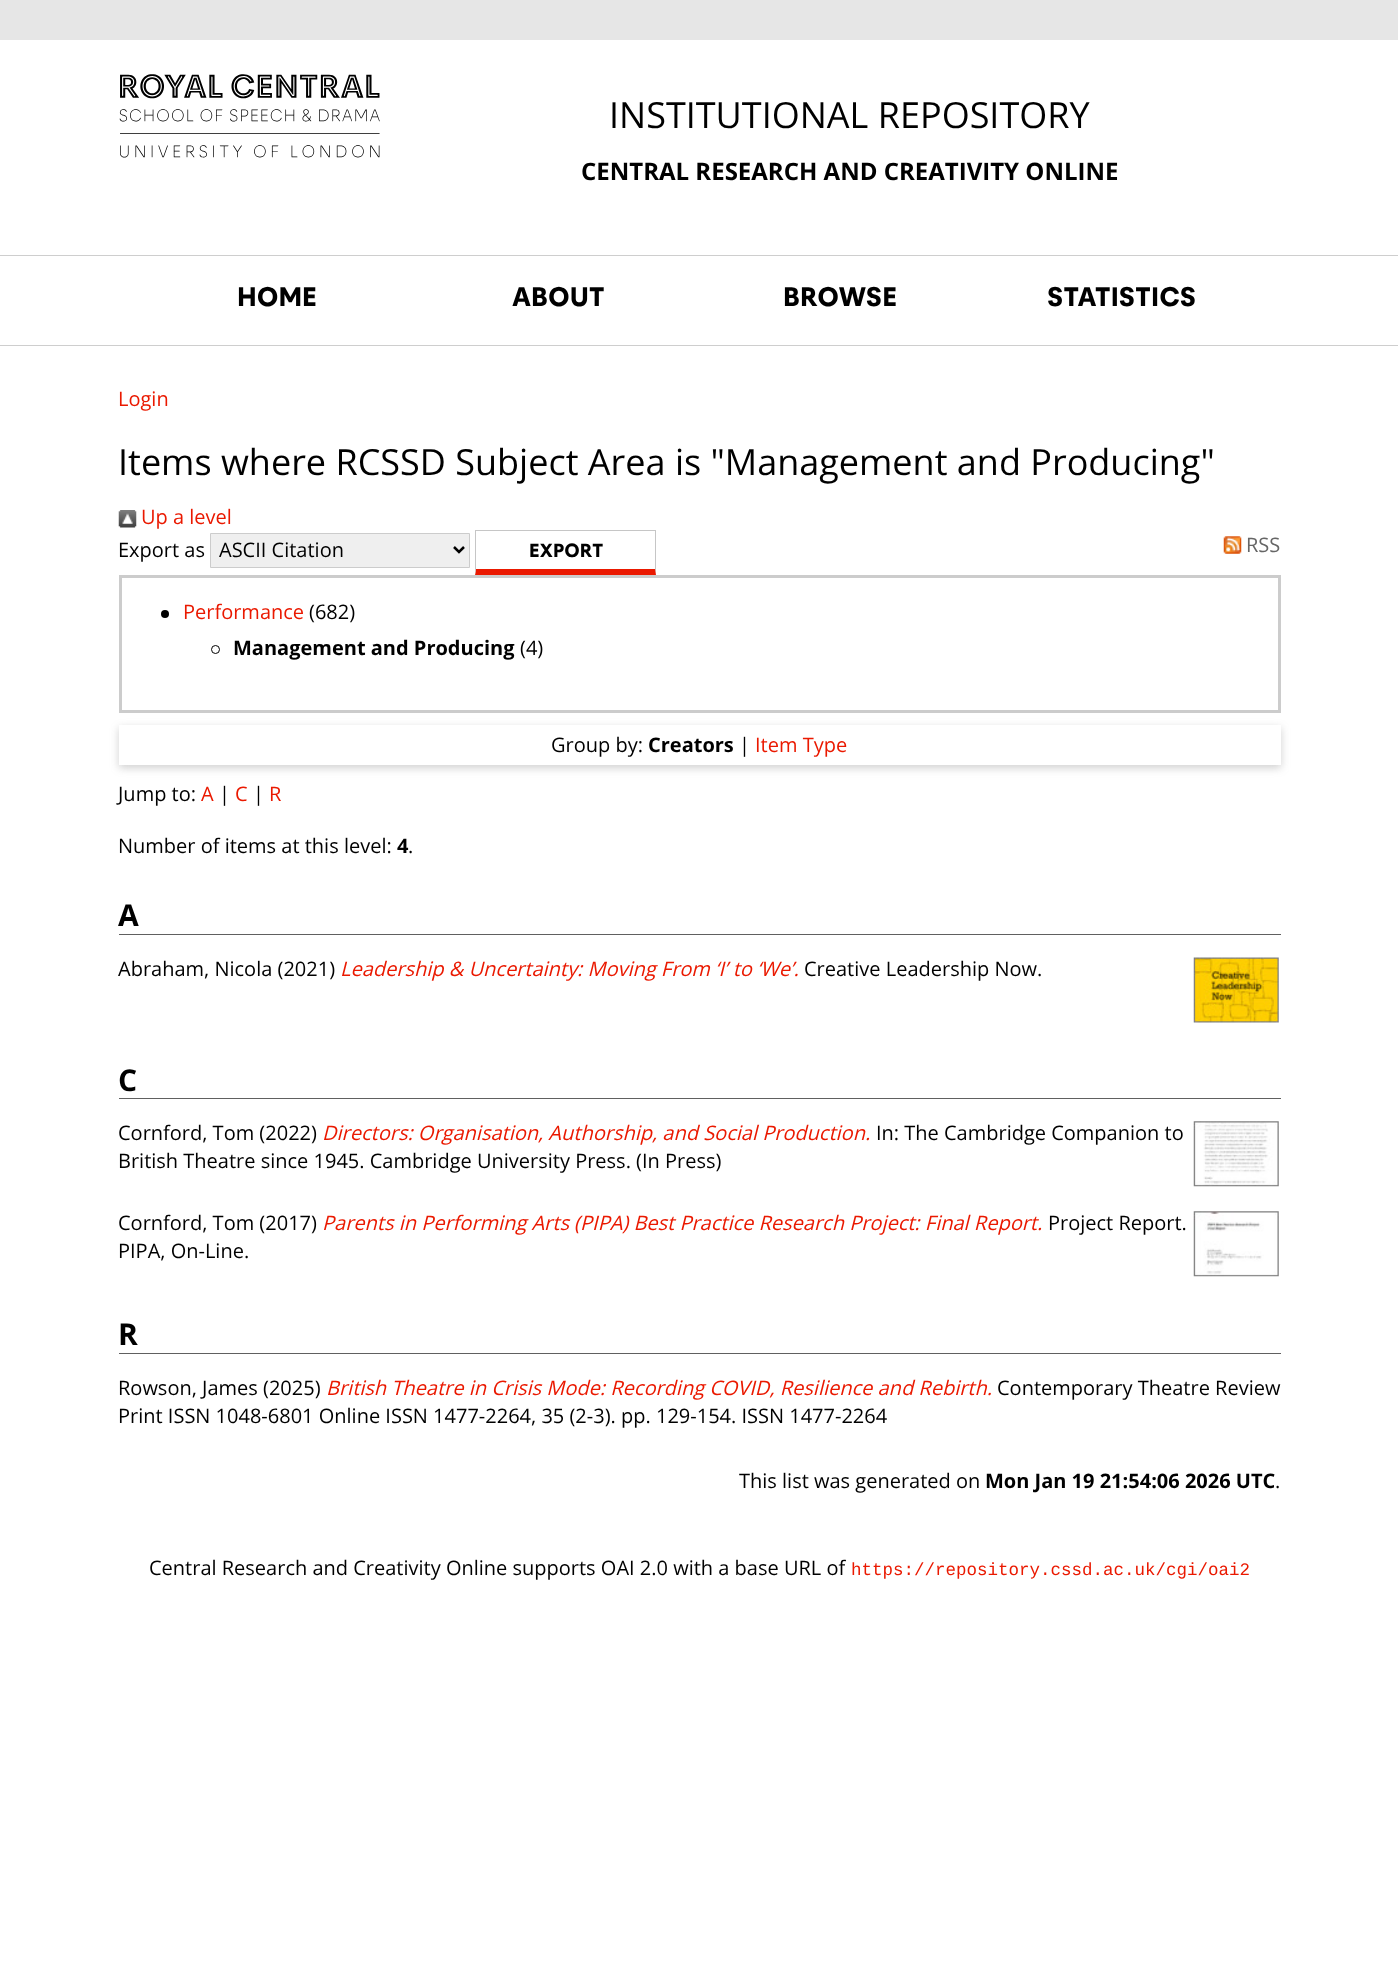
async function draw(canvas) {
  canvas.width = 1398;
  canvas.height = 1983;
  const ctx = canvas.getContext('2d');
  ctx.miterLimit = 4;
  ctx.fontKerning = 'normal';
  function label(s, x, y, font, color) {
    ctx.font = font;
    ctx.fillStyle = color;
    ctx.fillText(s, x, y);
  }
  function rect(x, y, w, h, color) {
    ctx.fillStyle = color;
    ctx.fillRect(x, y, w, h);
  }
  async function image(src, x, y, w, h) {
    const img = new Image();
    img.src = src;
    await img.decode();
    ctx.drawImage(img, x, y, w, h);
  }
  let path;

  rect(0, 0, 1398, 1983, '#fff');
  rect(0, 0, 1398, 40, '#e6e6e6');
  await image('assets/img1.png', 119, 74, 261, 84);
  label('INSTITUTIONAL REPOSITORY', 609, 128, '36px Open Sans', '#000');
  label('CENTRAL RESEARCH AND CREATIVITY ONLINE', 581, 180, 'bold 24px Open Sans', '#000');
  rect(0, 255, 1398, 1, '#cecece');
  rect(0, 345, 1398, 1, '#cecece');
  label('HOME', 237, 306, '28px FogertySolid', '#000');
  label('ABOUT', 512, 306, '28px FogertySolid', '#000');
  label('BROWSE', 783, 306, '28px FogertySolid', '#000');
  label('STATISTICS', 1047, 306, '28px FogertySolid', '#000');
  label('Login', 118, 406, '20px Open Sans', '#ea1900');
  label('Items where RCSSD Subject Area is "Management and Producing"', 118, 475, '36px Open Sans', '#000');
  await image('assets/img2.png', 118, 510, 19, 18);
  label('Up a level', 141, 524, '20px Open Sans', '#ea1900');
  label('Export as', 118, 557, '20px Open Sans', '#000');
  ctx.fillStyle = '#efefef';
  ctx.beginPath();
  ctx.rect(210.5, 533.5, 259, 34);
  ctx.fill();
  ctx.strokeStyle = '#ccc';
  ctx.stroke();
  path = new Path2D('M454 547L459 552L464 547');
  ctx.strokeStyle = '#000';
  ctx.lineWidth = 2.5;
  ctx.stroke(path);
  label('ASCII Citation', 219, 557, '20px Open Sans', '#000');
  rect(475, 530, 181, 1, '#c6c6c6');
  path = new Path2D('M656 530V575L655 569V531Z');
  ctx.fill(path);
  ctx.fillStyle = '#ea1900';
  path = new Path2D('M656 575H475L476 569H655Z');
  ctx.fill(path);
  ctx.fillStyle = '#c6c6c6';
  path = new Path2D('M475 575V530L476 531V569Z');
  ctx.fill(path);
  label('Export', 529, 557, '20px FogertySolid', '#000');
  await image('assets/img3.png', 1223, 536, 19, 18);
  label('RSS', 1246, 552, '20px Open Sans', '#666');
  ctx.strokeStyle = '#ccc';
  ctx.lineWidth = 3;
  ctx.strokeRect(120.5, 576.5, 1159, 135);
  ctx.fillStyle = '#000';
  ctx.beginPath();
  ctx.arc(165, 614, 4, 0, 2 * Math.PI);
  ctx.fill();
  label('Performance', 183, 619, '20px Open Sans', '#ea1900');
  label('(682)', 309, 619, '20px Open Sans', '#000');
  ctx.beginPath();
  ctx.arc(215.5, 649.5, 4, 0, 2 * Math.PI);
  ctx.strokeStyle = '#000';
  ctx.lineWidth = 1;
  ctx.stroke();
  label('Management and Producing', 233, 655, 'bold 20px Open Sans', '#000');
  label('(4)', 520, 655, '20px Open Sans', '#000');
  ctx.save();
  path = new Path2D('M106 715H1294V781H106ZM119 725H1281V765H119Z');
  ctx.clip(path, 'evenodd');
  ctx.fillStyle = '#6464644d';
  ctx.filter = 'blur(4px)';
  ctx.beginPath();
  ctx.rect(119, 728, 1162, 40);
  ctx.fill();
  ctx.filter = 'none';
  ctx.restore();
  label('Group by:', 551, 752, '20px Open Sans', '#000');
  label('Creators', 648, 752, 'bold 20px Open Sans', '#000');
  label('|', 739, 752, '20px Open Sans', '#000');
  label('Item Type', 755, 752, '20px Open Sans', '#ea1900');
  label('Jump to:', 118, 801, '20px Open Sans', '#000');
  label('A', 201, 801, '20px Open Sans', '#ea1900');
  label('|', 219, 801, '20px Open Sans', '#000');
  label('C', 235, 801, '20px Open Sans', '#ea1900');
  label('|', 253, 801, '20px Open Sans', '#000');
  label('R', 269, 801, '20px Open Sans', '#ea1900');
  label('Number of items at this level:', 118, 853, '20px Open Sans', '#000');
  label('4', 397, 853, 'bold 20px Open Sans', '#000');
  label('.', 408, 853, '20px Open Sans', '#000');
  rect(119, 934, 1162, 1, '#606060');
  label('A', 118, 926, 'bold 30px Open Sans', '#000');
  label('Abraham, Nicola (2021)', 118, 976, '20px Open Sans', '#000');
  label('Leadership & Uncertainty: Moving From ‘I’ to ‘We’.', 340, 976, 'italic 20px Open Sans', '#ea1900');
  label('Creative Leadership Now.', 804, 976, '20px Open Sans', '#000');
  await image('assets/img4.png', 1193, 957, 86, 66);
  rect(119, 1098, 1162, 1, '#606060');
  label('C', 118, 1091, 'bold 30px Open Sans', '#000');
  label('Cornford, Tom (2022)', 118, 1140, '20px Open Sans', '#000');
  label('Directors: Organisation, Authorship, and Social Production.', 322, 1140, 'italic 20px Open Sans', '#ea1900');
  label('In: The Cambridge Companion to', 876, 1140, '20px Open Sans', '#000');
  await image('assets/img5.png', 1193, 1121, 86, 66);
  label('British Theatre since 1945. Cambridge University Press. (In Press)', 118, 1168, '20px Open Sans', '#000');
  label('Cornford, Tom (2017)', 118, 1230, '20px Open Sans', '#000');
  label('Parents in Performing Arts (PIPA) Best Practice Research Project: Final Report.', 322, 1230, 'italic 20px Open Sans', '#ea1900');
  label('Project Report.', 1048, 1230, '20px Open Sans', '#000');
  await image('assets/img6.png', 1193, 1211, 86, 66);
  label('PIPA, On-Line.', 118, 1258, '20px Open Sans', '#000');
  rect(119, 1353, 1162, 1, '#606060');
  label('R', 118, 1345, 'bold 30px Open Sans', '#000');
  label('Rowson, James (2025)', 118, 1395, '20px Open Sans', '#000');
  label('British Theatre in Crisis Mode: Recording COVID, Resilience and Rebirth.', 326, 1395, 'italic 20px Open Sans', '#ea1900');
  label('Contemporary Theatre Review', 997, 1395, '20px Open Sans', '#000');
  label('Print ISSN 1048-6801 Online ISSN 1477-2264, 35 (2-3). pp. 129-154. ISSN 1477-2264', 118, 1423, '20px Open Sans', '#000');
  label('This list was generated on', 739, 1488, '20px Open Sans', '#000');
  label('Mon Jan 19 21:54:06 2026 UTC', 985, 1488, 'bold 20px Open Sans', '#000');
  label('.', 1275, 1488, '20px Open Sans', '#000');
  label('Central Research and Creativity Online supports OAI 2.0 with a base URL of', 149, 1575, '20px Open Sans', '#000');
  label('https://repository.cssd.ac.uk/cgi/oai2', 851, 1575, '17.5px Liberation Mono', '#ea1900');
}

draw(document.querySelector('canvas'));
